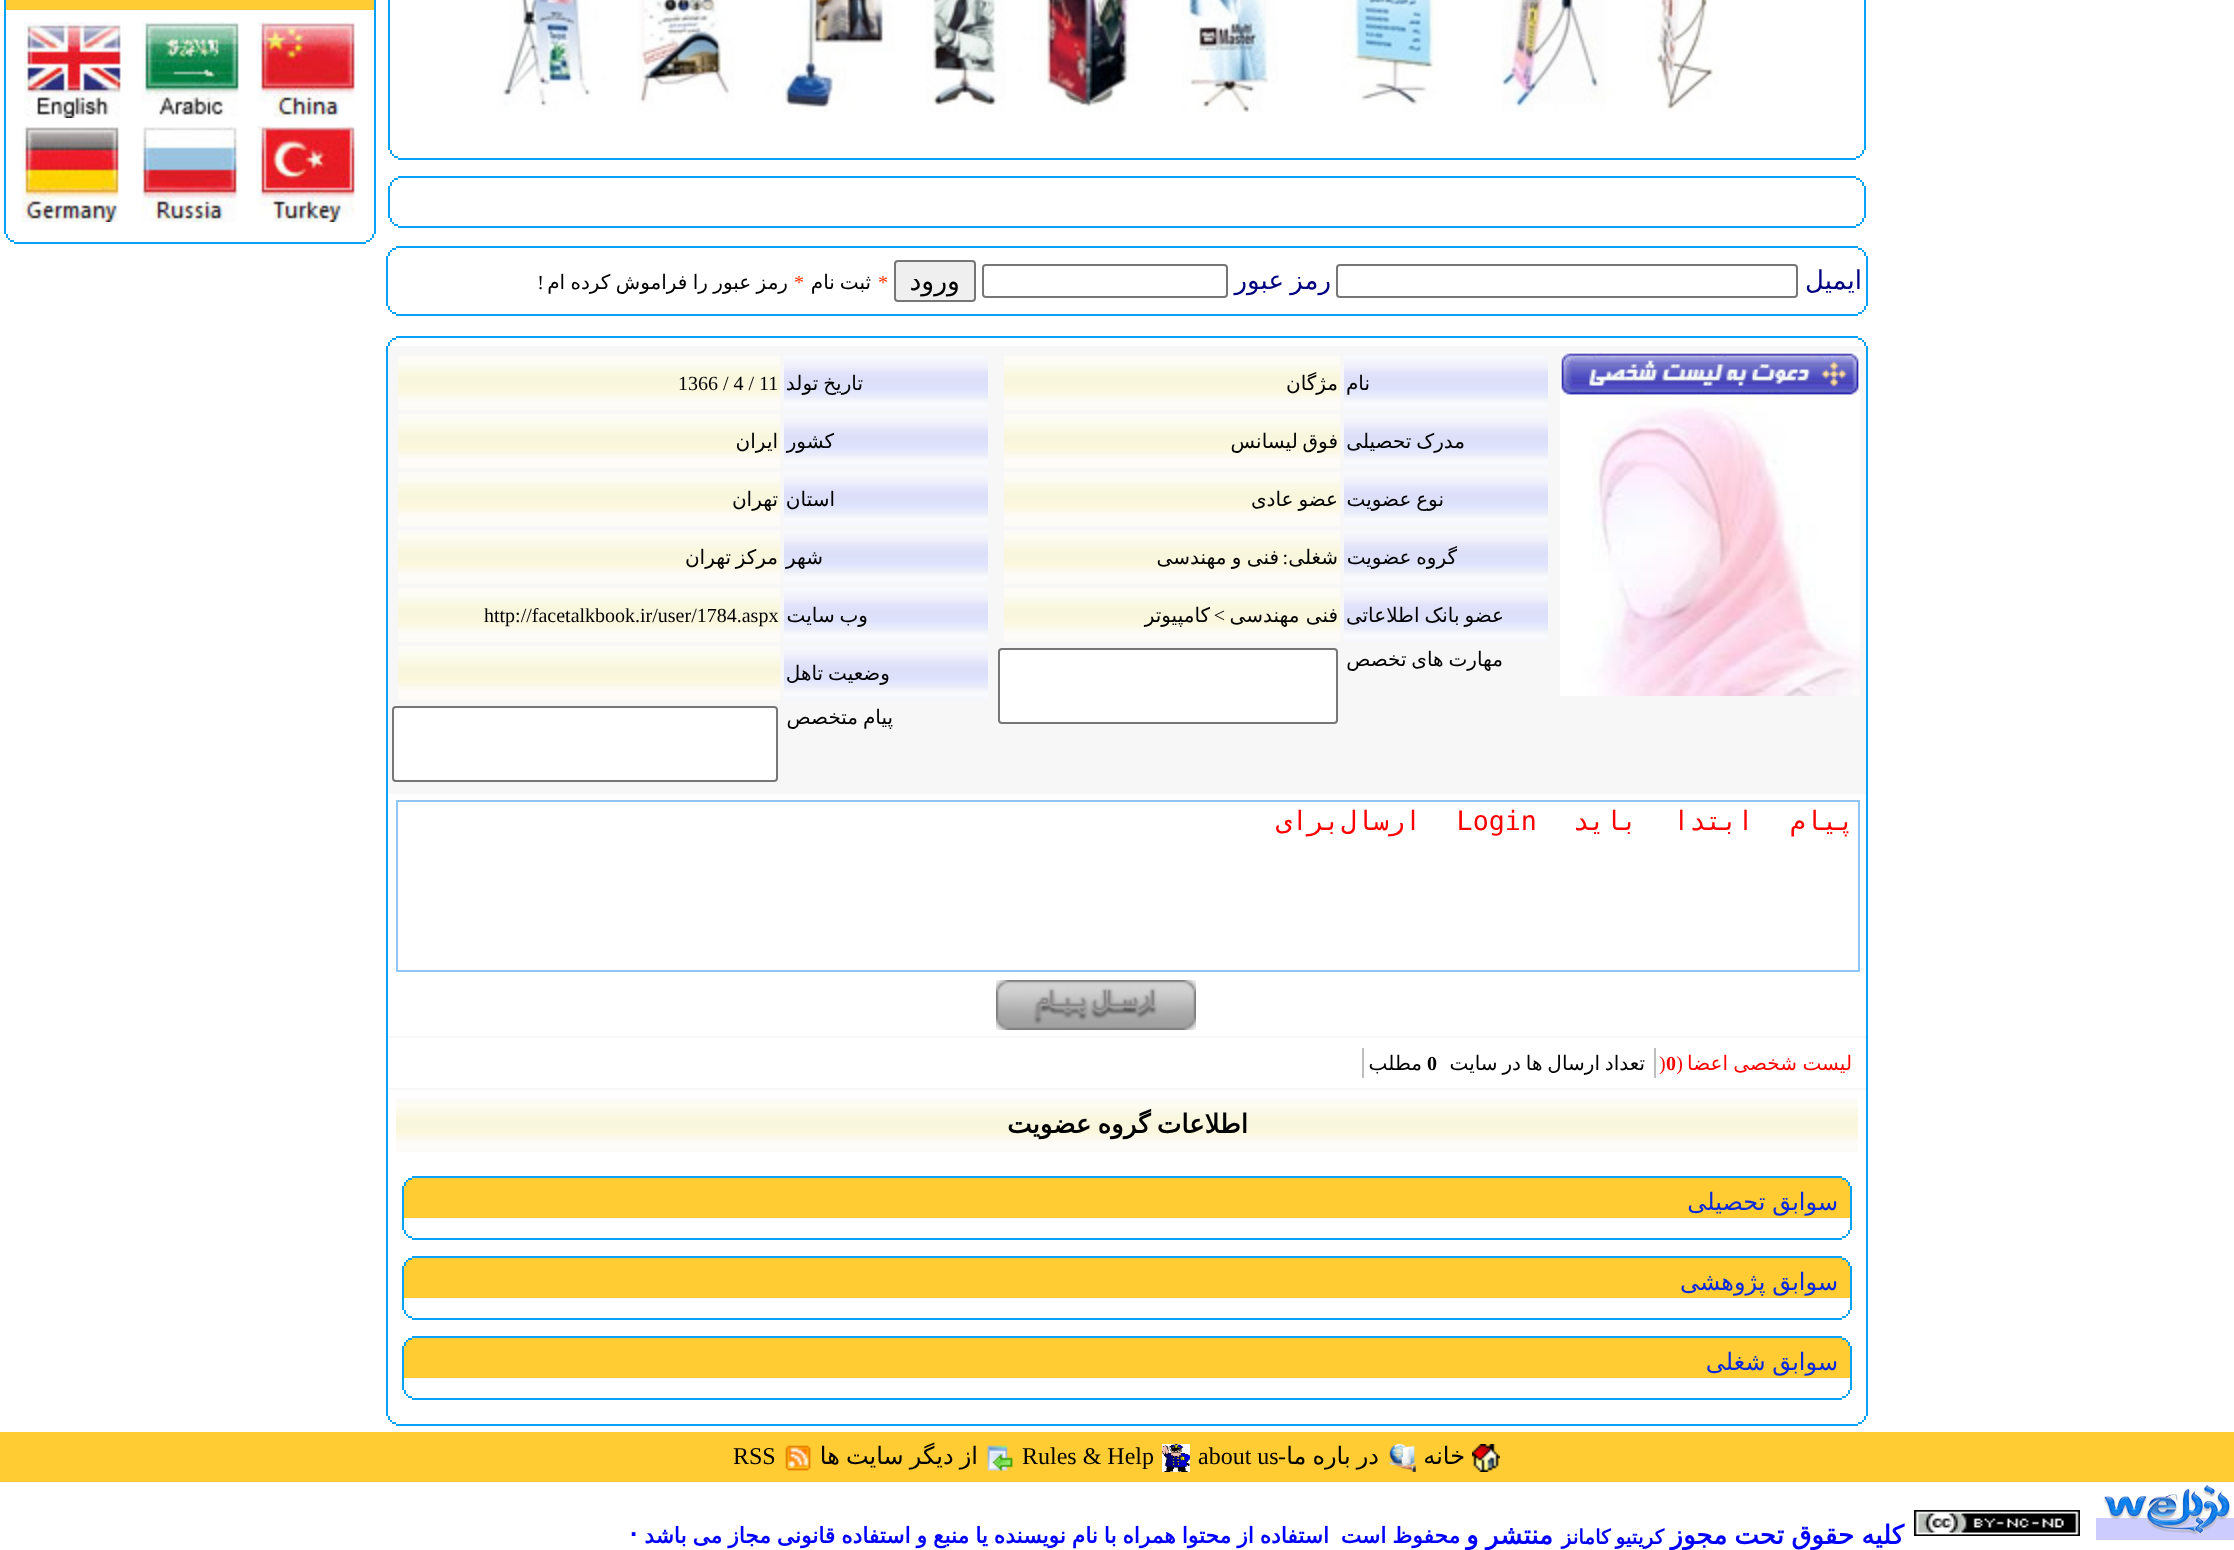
async function draw(canvas) {
  canvas.width = 2234;
  canvas.height = 1550;
  const ctx = canvas.getContext('2d');
  ctx.miterLimit = 4;
  ctx.fontKerning = 'normal';
  function label(s, x, y, font, color) {
    ctx.font = font;
    ctx.fillStyle = color;
    ctx.fillText(s, x, y);
  }
  function rect(x, y, w, h, color) {
    ctx.fillStyle = color;
    ctx.fillRect(x, y, w, h);
  }
  async function image(src, x, y, w, h) {
    const img = new Image();
    img.src = src;
    await img.decode();
    ctx.drawImage(img, x, y, w, h);
  }

  rect(0, 0, 2234, 1550, '#fff');
  rect(6, 0, 368, 10, '#fc3');
  rect(374, 0, 2, 234, '#07a1f7');
  rect(4, 0, 2, 234, '#07a1f7');
  await image('assets/img1.png', 258, 22, 97, 96);
  await image('assets/img2.png', 142, 22, 97, 96);
  await image('assets/img3.png', 24, 22, 97, 96);
  await image('assets/img4.png', 258, 126, 97, 96);
  await image('assets/img5.png', 142, 126, 96, 96);
  await image('assets/img6.png', 22, 126, 97, 96);
  rect(372, 234, 2, 4, '#07a1f7');
  rect(6, 234, 2, 4, '#07a1f7');
  rect(370, 238, 2, 2, '#07a1f7');
  rect(8, 238, 2, 2, '#07a1f7');
  rect(366, 240, 4, 2, '#07a1f7');
  rect(10, 240, 4, 2, '#07a1f7');
  rect(14, 242, 352, 2, '#07a1f7');
  rect(1864, 0, 2, 150, '#07a1f7');
  rect(388, 0, 2, 150, '#07a1f7');
  await image('assets/img7.png', 499, 0, 1220, 112);
  rect(1862, 150, 2, 4, '#07a1f7');
  rect(390, 150, 2, 4, '#07a1f7');
  rect(1860, 154, 2, 2, '#07a1f7');
  rect(392, 154, 2, 2, '#07a1f7');
  rect(1856, 156, 4, 2, '#07a1f7');
  rect(394, 156, 4, 2, '#07a1f7');
  rect(398, 158, 1458, 2, '#07a1f7');
  rect(398, 176, 1458, 2, '#07a1f7');
  rect(1856, 178, 4, 2, '#07a1f7');
  rect(394, 178, 4, 2, '#07a1f7');
  rect(1860, 180, 2, 2, '#07a1f7');
  rect(392, 180, 2, 2, '#07a1f7');
  rect(1862, 182, 2, 4, '#07a1f7');
  rect(390, 182, 2, 4, '#07a1f7');
  rect(1864, 186, 2, 32, '#07a1f7');
  rect(388, 186, 2, 32, '#07a1f7');
  rect(1862, 218, 2, 4, '#07a1f7');
  rect(390, 218, 2, 4, '#07a1f7');
  rect(1860, 222, 2, 2, '#07a1f7');
  rect(392, 222, 2, 2, '#07a1f7');
  rect(1856, 224, 4, 2, '#07a1f7');
  rect(394, 224, 4, 2, '#07a1f7');
  rect(398, 226, 1458, 2, '#07a1f7');
  rect(396, 246, 1462, 2, '#07a1f7');
  rect(1858, 248, 4, 2, '#07a1f7');
  rect(392, 248, 4, 2, '#07a1f7');
  rect(1862, 250, 2, 2, '#07a1f7');
  rect(390, 250, 2, 2, '#07a1f7');
  rect(1864, 252, 2, 4, '#07a1f7');
  rect(388, 252, 2, 4, '#07a1f7');
  rect(1866, 256, 2, 50, '#07a1f7');
  rect(386, 256, 2, 50, '#07a1f7');
  ctx.direction = 'rtl';
  label('ایمیل', 1862, 289, '26px DejaVu Sans', '#000080');
  ctx.beginPath();
  ctx.roundRect(1337, 265, 460, 32, 3);
  ctx.strokeStyle = '#767676';
  ctx.lineWidth = 2;
  ctx.stroke();
  ctx.wordSpacing = '-2px';
  label('رمز عبور', 1331, 289, '26px DejaVu Sans', '#000080');
  ctx.beginPath();
  ctx.roundRect(983, 265, 244, 32, 3);
  ctx.stroke();
  ctx.fillStyle = '#efefef';
  ctx.beginPath();
  ctx.roundRect(895, 261, 80, 40, 3);
  ctx.fill();
  ctx.stroke();
  ctx.wordSpacing = '0px';
  label('ورود', 960, 290, '26.7px DejaVu Sans', '#000');
  ctx.direction = 'ltr';
  label('*', 878, 289, '20px Liberation Serif', '#f30');
  ctx.wordSpacing = '-1.5px';
  ctx.direction = 'rtl';
  label('ثبت نام', 871, 289, '20px DejaVu Sans', '#000');
  ctx.wordSpacing = '0px';
  ctx.direction = 'ltr';
  label('*', 794, 289, '20px Liberation Serif', '#f30');
  ctx.wordSpacing = '-1px';
  ctx.direction = 'rtl';
  label('رمز عبور را فراموش کرده ام', 788, 289, '20px DejaVu Sans', '#000');
  ctx.wordSpacing = '0px';
  label('!', 544, 289, '20px Liberation Serif', '#000');
  rect(1864, 306, 2, 4, '#07a1f7');
  rect(388, 306, 2, 4, '#07a1f7');
  rect(1862, 310, 2, 2, '#07a1f7');
  rect(390, 310, 2, 2, '#07a1f7');
  rect(1858, 312, 4, 2, '#07a1f7');
  rect(392, 312, 4, 2, '#07a1f7');
  rect(396, 314, 1462, 2, '#07a1f7');
  rect(396, 336, 1462, 2, '#07a1f7');
  rect(1858, 338, 4, 2, '#07a1f7');
  rect(392, 338, 4, 2, '#07a1f7');
  rect(1862, 340, 2, 2, '#07a1f7');
  rect(390, 340, 2, 2, '#07a1f7');
  rect(1864, 342, 2, 4, '#07a1f7');
  rect(388, 342, 2, 4, '#07a1f7');
  rect(1866, 346, 2, 1070, '#07a1f7');
  rect(386, 346, 2, 1070, '#07a1f7');
  rect(388, 346, 1478, 448, '#f7f7f7');
  await image('assets/img8.png', 1560, 352, 300, 44);
  await image('assets/img9.png', 1560, 396, 300, 300);
  await image('assets/img10.png', 1344, 356, 204, 54);
  label('نام', 1370, 390, '20px DejaVu Sans', '#000');
  await image('assets/img11.png', 1004, 356, 336, 54);
  label('مژگان', 1338, 390, '20px DejaVu Sans', '#000');
  await image('assets/img10.png', 1344, 414, 204, 54);
  ctx.wordSpacing = '-1.5px';
  label('مدرک تحصیلی', 1465, 448, '20px DejaVu Sans', '#000');
  await image('assets/img11.png', 1004, 414, 336, 54);
  label('فوق لیسانس', 1338, 448, '20px DejaVu Sans', '#000');
  await image('assets/img10.png', 1344, 472, 204, 54);
  label('نوع عضویت', 1444, 506, '20px DejaVu Sans', '#000');
  await image('assets/img11.png', 1004, 472, 336, 54);
  label('عضو عادی', 1338, 506, '20px DejaVu Sans', '#000');
  await image('assets/img10.png', 1344, 530, 204, 54);
  label('گروه عضویت', 1457, 564, '20px DejaVu Sans', '#000');
  await image('assets/img11.png', 1004, 530, 336, 54);
  ctx.wordSpacing = '0px';
  label('شغلی', 1338, 564, '20px DejaVu Sans', '#000');
  label(':', 1288, 564, '20px Liberation Serif', '#000');
  ctx.wordSpacing = '-1px';
  label('فنی و مهندسی', 1279, 564, '20px DejaVu Sans', '#000');
  await image('assets/img10.png', 1344, 588, 204, 54);
  ctx.wordSpacing = '-1.5px';
  label('عضو بانک اطلاعاتی', 1504, 622, '20px DejaVu Sans', '#000');
  await image('assets/img11.png', 1004, 588, 336, 54);
  ctx.wordSpacing = '0px';
  label('فنی مهندسی', 1338, 622, '20px DejaVu Sans', '#000');
  label('>', 1225, 622, '20px Liberation Serif', '#000');
  label('کامپیوتر', 1210, 622, '20px DejaVu Sans', '#000');
  ctx.wordSpacing = '-1.5px';
  label('مهارت های تخصص', 1503, 666, '20px DejaVu Sans', '#000');
  ctx.fillStyle = '#fff';
  ctx.beginPath();
  ctx.roundRect(999, 649, 338, 74, 3);
  ctx.fill();
  ctx.stroke();
  await image('assets/img10.png', 784, 356, 204, 54);
  label('تاریخ تولد', 863, 390, '20px DejaVu Sans', '#000');
  await image('assets/img12.png', 398, 356, 382, 54);
  ctx.wordSpacing = '0px';
  ctx.direction = 'ltr';
  label('1366 / 4 / 11', 678, 390, '20px Liberation Serif', '#000');
  await image('assets/img10.png', 784, 414, 204, 54);
  ctx.direction = 'rtl';
  label('کشور', 834, 448, '20px DejaVu Sans', '#000');
  await image('assets/img12.png', 398, 414, 382, 54);
  label('ایران', 778, 448, '20px DejaVu Sans', '#000');
  await image('assets/img10.png', 784, 472, 204, 54);
  label('استان', 835, 506, '20px DejaVu Sans', '#000');
  await image('assets/img12.png', 398, 472, 382, 54);
  label('تهران', 778, 506, '20px DejaVu Sans', '#000');
  await image('assets/img10.png', 784, 530, 204, 54);
  label('شهر', 823, 564, '20px DejaVu Sans', '#000');
  await image('assets/img12.png', 398, 530, 382, 54);
  label('مرکز', 778, 564, '20px DejaVu Sans', '#000');
  label('تهران', 731, 564, '20px DejaVu Sans', '#000');
  await image('assets/img10.png', 784, 588, 204, 54);
  ctx.wordSpacing = '-1.5px';
  label('وب سایت', 868, 622, '20px DejaVu Sans', '#000');
  await image('assets/img12.png', 398, 588, 382, 54);
  ctx.wordSpacing = '0px';
  ctx.direction = 'ltr';
  label('http://facetalkbook.ir/user/1784.aspx', 484, 622, '20px Liberation Serif', '#000');
  await image('assets/img10.png', 784, 646, 204, 54);
  ctx.wordSpacing = '-1.5px';
  ctx.direction = 'rtl';
  label('وضعیت تاهل', 890, 680, '20px DejaVu Sans', '#000');
  await image('assets/img12.png', 398, 646, 382, 54);
  label('پیام متخصص', 893, 724, '20px DejaVu Sans', '#000');
  ctx.fillStyle = '#fff';
  ctx.beginPath();
  ctx.roundRect(393, 707, 384, 74, 3);
  ctx.fill();
  ctx.stroke();
  ctx.strokeStyle = '#91c4f7';
  ctx.strokeRect(397, 801, 1462, 170);
  ctx.wordSpacing = '20px';
  label('پیام ابتدا باید Login', 1854, 830, '26.7px DejaVu Sans Mono', '#f00');
  ctx.wordSpacing = '0px';
  label('ارسال', 1421, 830, '26.7px DejaVu Sans Mono', '#f00');
  label('برای', 1340, 830, '26.7px DejaVu Sans Mono', '#f00');
  await image('assets/img13.png', 996, 980, 200, 50);
  rect(388, 1036, 1478, 2, '#f7f7f7');
  rect(388, 1088, 1478, 2, '#f7f7f7');
  rect(1654, 1048, 2, 30, '#bebebe');
  ctx.wordSpacing = '-1px';
  label('لیست شخصی اعضا', 1852, 1070, '20px DejaVu Sans', '#f00');
  ctx.wordSpacing = '0px';
  label('(', 1683, 1070, '20px Liberation Serif', '#f00');
  ctx.direction = 'ltr';
  label('0', 1666, 1070, 'bold 20px Liberation Serif', '#f00');
  label(')', 1659, 1070, '20px Liberation Serif', '#f00');
  ctx.wordSpacing = '-1.5px';
  ctx.direction = 'rtl';
  label('تعداد ارسال ها در سایت', 1645, 1070, '20px DejaVu Sans', '#000');
  rect(1362, 1048, 2, 30, '#bebebe');
  ctx.wordSpacing = '0px';
  ctx.direction = 'ltr';
  label('0', 1427, 1070, 'bold 20px Liberation Serif', '#000');
  ctx.direction = 'rtl';
  label('مطلب', 1422, 1070, '20px DejaVu Sans', '#000');
  await image('assets/img14.png', 396, 1098, 1462, 54);
  ctx.wordSpacing = '-2px';
  label('اطلاعات گروه عضویت', 1248, 1133, 'bold 26px DejaVu Sans', '#000');
  rect(412, 1176, 1430, 2, '#07a1f7');
  rect(408, 1178, 1438, 2, '#fc3');
  rect(1842, 1178, 4, 2, '#07a1f7');
  rect(408, 1178, 4, 2, '#07a1f7');
  rect(406, 1180, 1442, 2, '#fc3');
  rect(1846, 1180, 2, 2, '#07a1f7');
  rect(406, 1180, 2, 2, '#07a1f7');
  rect(404, 1182, 1446, 36, '#fc3');
  rect(1848, 1182, 2, 4, '#07a1f7');
  rect(404, 1182, 2, 4, '#07a1f7');
  rect(1850, 1186, 2, 44, '#07a1f7');
  rect(402, 1186, 2, 44, '#07a1f7');
  ctx.wordSpacing = '-1px';
  label('سوابق تحصیلی', 1838, 1210, '24px DejaVu Sans', '#082add');
  rect(1848, 1230, 2, 4, '#07a1f7');
  rect(404, 1230, 2, 4, '#07a1f7');
  rect(1846, 1234, 2, 2, '#07a1f7');
  rect(406, 1234, 2, 2, '#07a1f7');
  rect(1842, 1236, 4, 2, '#07a1f7');
  rect(408, 1236, 4, 2, '#07a1f7');
  rect(412, 1238, 1430, 2, '#07a1f7');
  rect(412, 1256, 1430, 2, '#07a1f7');
  rect(408, 1258, 1438, 2, '#fc3');
  rect(1842, 1258, 4, 2, '#07a1f7');
  rect(408, 1258, 4, 2, '#07a1f7');
  rect(406, 1260, 1442, 2, '#fc3');
  rect(1846, 1260, 2, 2, '#07a1f7');
  rect(406, 1260, 2, 2, '#07a1f7');
  rect(404, 1262, 1446, 36, '#fc3');
  rect(1848, 1262, 2, 4, '#07a1f7');
  rect(404, 1262, 2, 4, '#07a1f7');
  rect(1850, 1266, 2, 44, '#07a1f7');
  rect(402, 1266, 2, 44, '#07a1f7');
  label('سوابق پژوهشی', 1838, 1290, '24px DejaVu Sans', '#082add');
  rect(1848, 1310, 2, 4, '#07a1f7');
  rect(404, 1310, 2, 4, '#07a1f7');
  rect(1846, 1314, 2, 2, '#07a1f7');
  rect(406, 1314, 2, 2, '#07a1f7');
  rect(1842, 1316, 4, 2, '#07a1f7');
  rect(408, 1316, 4, 2, '#07a1f7');
  rect(412, 1318, 1430, 2, '#07a1f7');
  rect(412, 1336, 1430, 2, '#07a1f7');
  rect(408, 1338, 1438, 2, '#fc3');
  rect(1842, 1338, 4, 2, '#07a1f7');
  rect(408, 1338, 4, 2, '#07a1f7');
  rect(406, 1340, 1442, 2, '#fc3');
  rect(1846, 1340, 2, 2, '#07a1f7');
  rect(406, 1340, 2, 2, '#07a1f7');
  rect(404, 1342, 1446, 36, '#fc3');
  rect(1848, 1342, 2, 4, '#07a1f7');
  rect(404, 1342, 2, 4, '#07a1f7');
  rect(1850, 1346, 2, 44, '#07a1f7');
  rect(402, 1346, 2, 44, '#07a1f7');
  label('سوابق شغلی', 1838, 1370, '24px DejaVu Sans', '#082add');
  rect(1848, 1390, 2, 4, '#07a1f7');
  rect(404, 1390, 2, 4, '#07a1f7');
  rect(1846, 1394, 2, 2, '#07a1f7');
  rect(406, 1394, 2, 2, '#07a1f7');
  rect(1842, 1396, 4, 2, '#07a1f7');
  rect(408, 1396, 4, 2, '#07a1f7');
  rect(412, 1398, 1430, 2, '#07a1f7');
  rect(1864, 1416, 2, 4, '#07a1f7');
  rect(388, 1416, 2, 4, '#07a1f7');
  rect(1862, 1420, 2, 2, '#07a1f7');
  rect(390, 1420, 2, 2, '#07a1f7');
  rect(1858, 1422, 4, 2, '#07a1f7');
  rect(392, 1422, 4, 2, '#07a1f7');
  rect(396, 1424, 1462, 2, '#07a1f7');
  rect(0, 1432, 2234, 50, '#fc3');
  await image('assets/img15.png', 1472, 1444, 28, 28);
  ctx.wordSpacing = '0px';
  label('خانه', 1465, 1464, '24px DejaVu Sans', '#000');
  await image('assets/img16.png', 1388, 1444, 28, 28);
  ctx.wordSpacing = '-1.5px';
  label('در باره ما', 1379, 1464, '24px DejaVu Sans', '#000');
  ctx.wordSpacing = '0px';
  label('-', 1286, 1464, '24px Liberation Serif', '#000');
  ctx.direction = 'ltr';
  label('about us', 1198, 1464, '24px Liberation Serif', '#000');
  await image('assets/img17.png', 1162, 1444, 28, 28);
  label('Rules & Help', 1022, 1464, '24px Liberation Serif', '#000');
  await image('assets/img18.png', 987, 1445, 26, 26);
  ctx.wordSpacing = '-1.5px';
  ctx.direction = 'rtl';
  label('از دیگر سایت ها', 978, 1464, '24px DejaVu Sans', '#000');
  await image('assets/img19.png', 785, 1445, 26, 26);
  ctx.wordSpacing = '0px';
  ctx.direction = 'ltr';
  label('RSS', 733, 1464, '24px Liberation Serif', '#000');
  rect(2096, 1518, 138, 22, '#ccf');
  await image('assets/img20.png', 2103, 1484, 128, 51);
  await image('assets/img21.png', 1914, 1510, 166, 26);
  ctx.wordSpacing = '-1px';
  ctx.direction = 'rtl';
  label('کلیه حقوق تحت مجوز', 1904, 1544, 'bold 26px DejaVu Sans', '#00f');
  ctx.wordSpacing = '-1.5px';
  label('کریتیو کامانز', 1664, 1544, 'bold 20px DejaVu Sans', '#00e');
  ctx.wordSpacing = '-1px';
  label('منتشر و', 1553, 1544, 'bold 26px DejaVu Sans', '#00f');
  ctx.wordSpacing = '-0.9px';
  label('محفوظ است', 1460, 1543, 'bold 21.7px DejaVu Sans', '#00f');
  label('استفاده از محتوا همراه با نام نویسنده یا منبع و استفاده قانونی مجاز می باشد', 1329, 1543, 'bold 21.7px DejaVu Sans', '#00f');
  ctx.wordSpacing = '0px';
  ctx.direction = 'ltr';
  label('.', 630, 1536, 'bold 26px Liberation Sans', '#00f');
}

draw(document.querySelector('canvas'));
